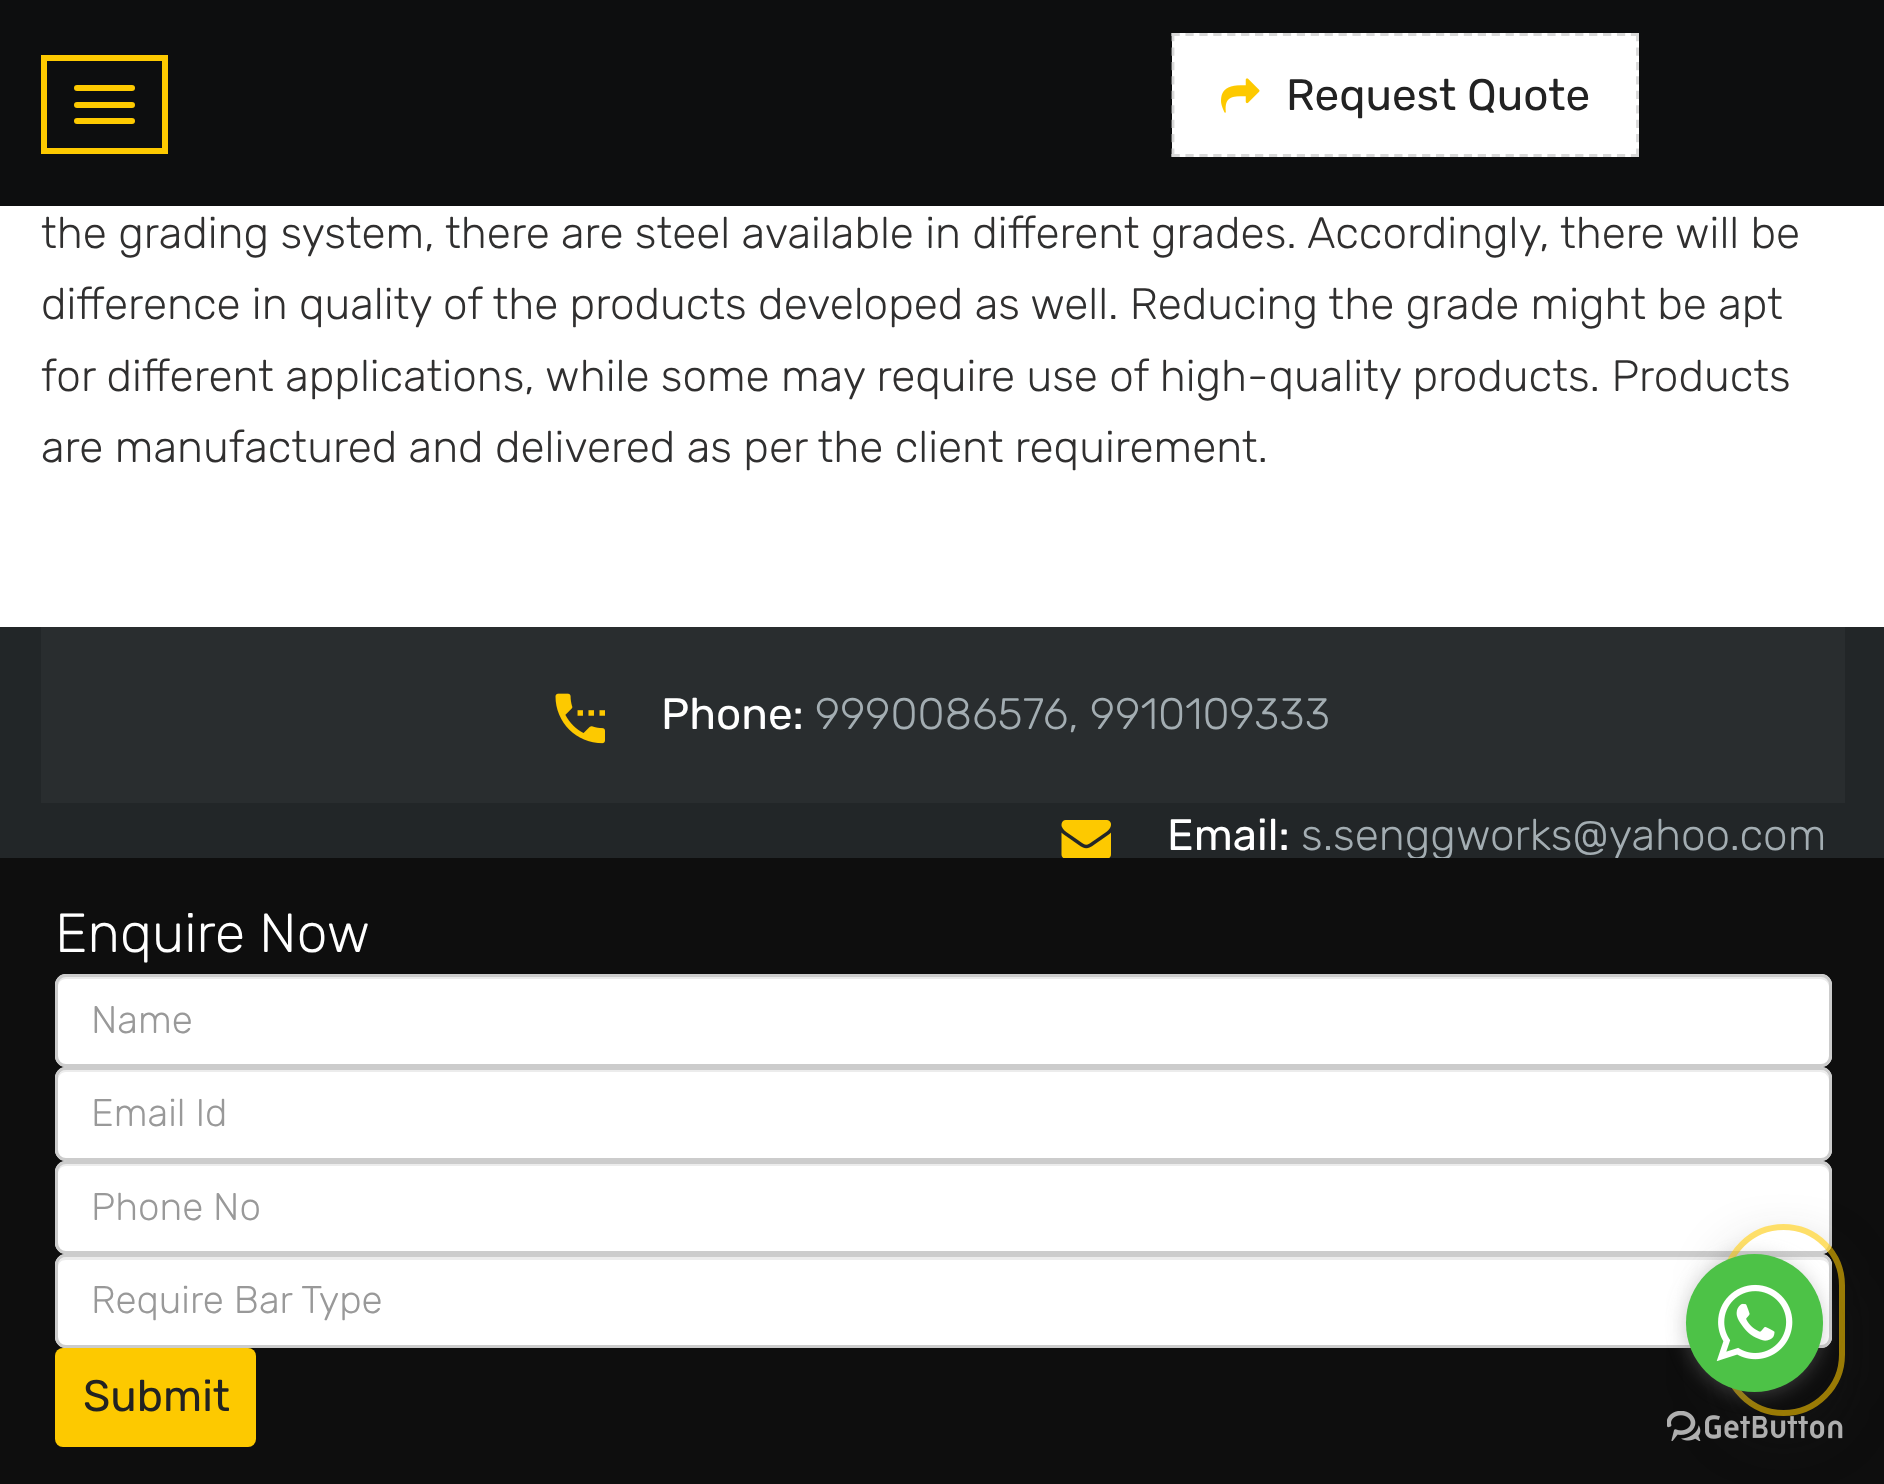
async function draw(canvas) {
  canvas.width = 1884;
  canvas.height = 1484;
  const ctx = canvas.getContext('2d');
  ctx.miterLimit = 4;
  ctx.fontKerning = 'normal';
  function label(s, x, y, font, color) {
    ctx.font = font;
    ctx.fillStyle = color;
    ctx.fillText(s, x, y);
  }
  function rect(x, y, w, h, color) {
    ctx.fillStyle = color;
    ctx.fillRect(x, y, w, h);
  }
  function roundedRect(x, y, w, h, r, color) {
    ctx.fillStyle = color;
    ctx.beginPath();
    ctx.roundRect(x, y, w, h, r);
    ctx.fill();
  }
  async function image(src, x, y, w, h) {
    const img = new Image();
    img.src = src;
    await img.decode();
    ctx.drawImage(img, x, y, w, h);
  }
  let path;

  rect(0, 0, 1884, 1484, '#fff');
  rect(0, 0, 1884, 206, '#0d0e0f');
  ctx.strokeStyle = '#fdc900';
  ctx.lineWidth = 6;
  ctx.strokeRect(44, 58, 121, 93);
  roundedRect(74, 85, 61, 6, 3, '#fdc900');
  roundedRect(74, 102, 61, 6, 3, '#fdc900');
  roundedRect(74, 118, 61, 6, 3, '#fdc900');
  rect(1172, 33, 467, 124, '#fff');
  path = new Path2D('M1171.5 34.5H1639');
  ctx.strokeStyle = '#d9d9d9';
  ctx.lineWidth = 2.8;
  ctx.setLineDash([8.25, 5.67]);
  ctx.stroke(path);
  path = new Path2D('M1637.5 33V157');
  ctx.setLineDash([8.25, 6.19]);
  ctx.stroke(path);
  path = new Path2D('M1171.5 155.5H1639');
  ctx.setLineDash([8.25, 5.67]);
  ctx.stroke(path);
  path = new Path2D('M1173 33V157');
  ctx.setLineDash([8.25, 6.19]);
  ctx.stroke(path);
  await image('assets/img1.png', 1221, 78, 39, 35);
  label('Request Quote', 1286, 110, '44px Rubik', '#222');
  label('the grading system, there are steel available in different grades. Accordingly, there will be', 41, 248, '300 44px Rubik', '#302f2f');
  label('difference in quality of the products developed as well. Reducing the grade might be apt', 41, 319, '300 44px Rubik', '#302f2f');
  label('for different applications, while some may require use of high-quality products. Products', 41, 391, '300 44px Rubik', '#302f2f');
  label('are manufactured and delivered as per the client requirement.', 41, 462, '300 44px Rubik', '#302f2f');
  rect(0, 627, 1884, 231, '#222628');
  rect(41, 627, 1804, 176, '#292d2f');
  await image('assets/img2.png', 555, 693, 50, 51);
  label('Phone:', 661, 729, '44px Rubik', '#fff');
  label('9990086576, 9910109333', 815, 729, '300 44px Rubik', '#a3adb2');
  await image('assets/img3.png', 1061, 820, 50, 38);
  label('Email:', 1167, 850, '44px Rubik', '#fff');
  label('s.senggworks@yahoo.com', 1301, 850, '300 44px Rubik', '#a3adb2');
  rect(0, 858, 1884, 626, '#0e0e0e');
  label('Enquire Now', 55, 952, '300 55px Rubik', '#fff');
  roundedRect(55, 974, 1777, 93, 11, '#fff');
  ctx.fillStyle = '#ececec';
  path = new Path2D('M66 979H1820C1825 979 1829 983 1829 987V984C1829 980 1825 976 1821 976H66C62 976 58 980 58 984V987C58 983 61 979 66 979Z');
  ctx.fill(path);
  ctx.beginPath();
  ctx.roundRect(56.5, 975.5, 1774, 90, 9.5);
  ctx.strokeStyle = '#ccc';
  ctx.lineWidth = 3;
  ctx.setLineDash([]);
  ctx.stroke();
  label('Name', 91, 1033, '300 38.5px Rubik', '#999');
  roundedRect(55, 1067, 1777, 94, 11, '#fff');
  ctx.fillStyle = '#ececec';
  path = new Path2D('M66 1072H1820C1825 1072 1829 1076 1829 1081V1078C1829 1074 1825 1070 1821 1070H66C62 1070 58 1074 58 1078V1081C58 1076 61 1072 66 1072Z');
  ctx.fill(path);
  ctx.beginPath();
  ctx.roundRect(56.5, 1068.5, 1774, 91, 9.5);
  ctx.stroke();
  label('Email Id', 91, 1126, '300 38.5px Rubik', '#999');
  roundedRect(55, 1161, 1777, 93, 11, '#fff');
  ctx.fillStyle = '#ececec';
  path = new Path2D('M66 1166H1820C1825 1166 1829 1170 1829 1174V1171C1829 1167 1825 1163 1821 1163H66C62 1163 58 1167 58 1171V1174C58 1170 61 1166 66 1166Z');
  ctx.fill(path);
  ctx.beginPath();
  ctx.roundRect(56.5, 1162.5, 1774, 90, 9.5);
  ctx.stroke();
  label('Phone No', 91, 1220, '300 38.5px Rubik', '#999');
  roundedRect(55, 1254, 1777, 94, 11, '#fff');
  ctx.fillStyle = '#ececec';
  path = new Path2D('M66 1260H1820C1825 1260 1829 1263 1829 1268V1265C1829 1261 1825 1257 1821 1257H66C62 1257 58 1261 58 1265V1268C58 1263 61 1260 66 1260Z');
  ctx.fill(path);
  ctx.beginPath();
  ctx.roundRect(56.5, 1255.5, 1774, 91, 9.5);
  ctx.stroke();
  label('Require Bar Type', 91, 1313, '300 38.5px Rubik', '#999');
  roundedRect(55, 1348, 201, 99, 8, '#fdc900');
  label('Submit', 83, 1411, '44px Rubik', '#222');
  ctx.save();
  path = new Path2D('M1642 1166H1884V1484H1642ZM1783.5 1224C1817.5 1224 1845 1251.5 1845 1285.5V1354.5C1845 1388.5 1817.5 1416 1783.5 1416C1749.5 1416 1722 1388.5 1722 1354.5V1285.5C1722 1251.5 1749.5 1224 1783.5 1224Z');
  ctx.clip(path, 'evenodd');
  ctx.fillStyle = '#1b1b1b96';
  ctx.filter = 'blur(31.5px)';
  ctx.beginPath();
  ctx.roundRect(1738, 1262, 91, 160, 45.5);
  ctx.fill();
  ctx.filter = 'none';
  ctx.restore();
  ctx.beginPath();
  ctx.roundRect(1725, 1227, 117, 186, 58.5);
  ctx.strokeStyle = '#fdc90096';
  ctx.lineWidth = 6;
  ctx.stroke();
  await image('assets/img5.png', 1667, 1411, 176, 30);
  ctx.fillStyle = '#88888866';
  ctx.filter = 'blur(9.5px)';
  ctx.beginPath();
  ctx.roundRect(1686, 1257, 137, 137, 68.5);
  ctx.fill();
  ctx.filter = 'none';
  roundedRect(1686, 1254, 137, 138, 68.5, '#4dc247');
  await image('assets/img4.png', 1716, 1284, 77, 78);
}

draw(document.querySelector('canvas'));
